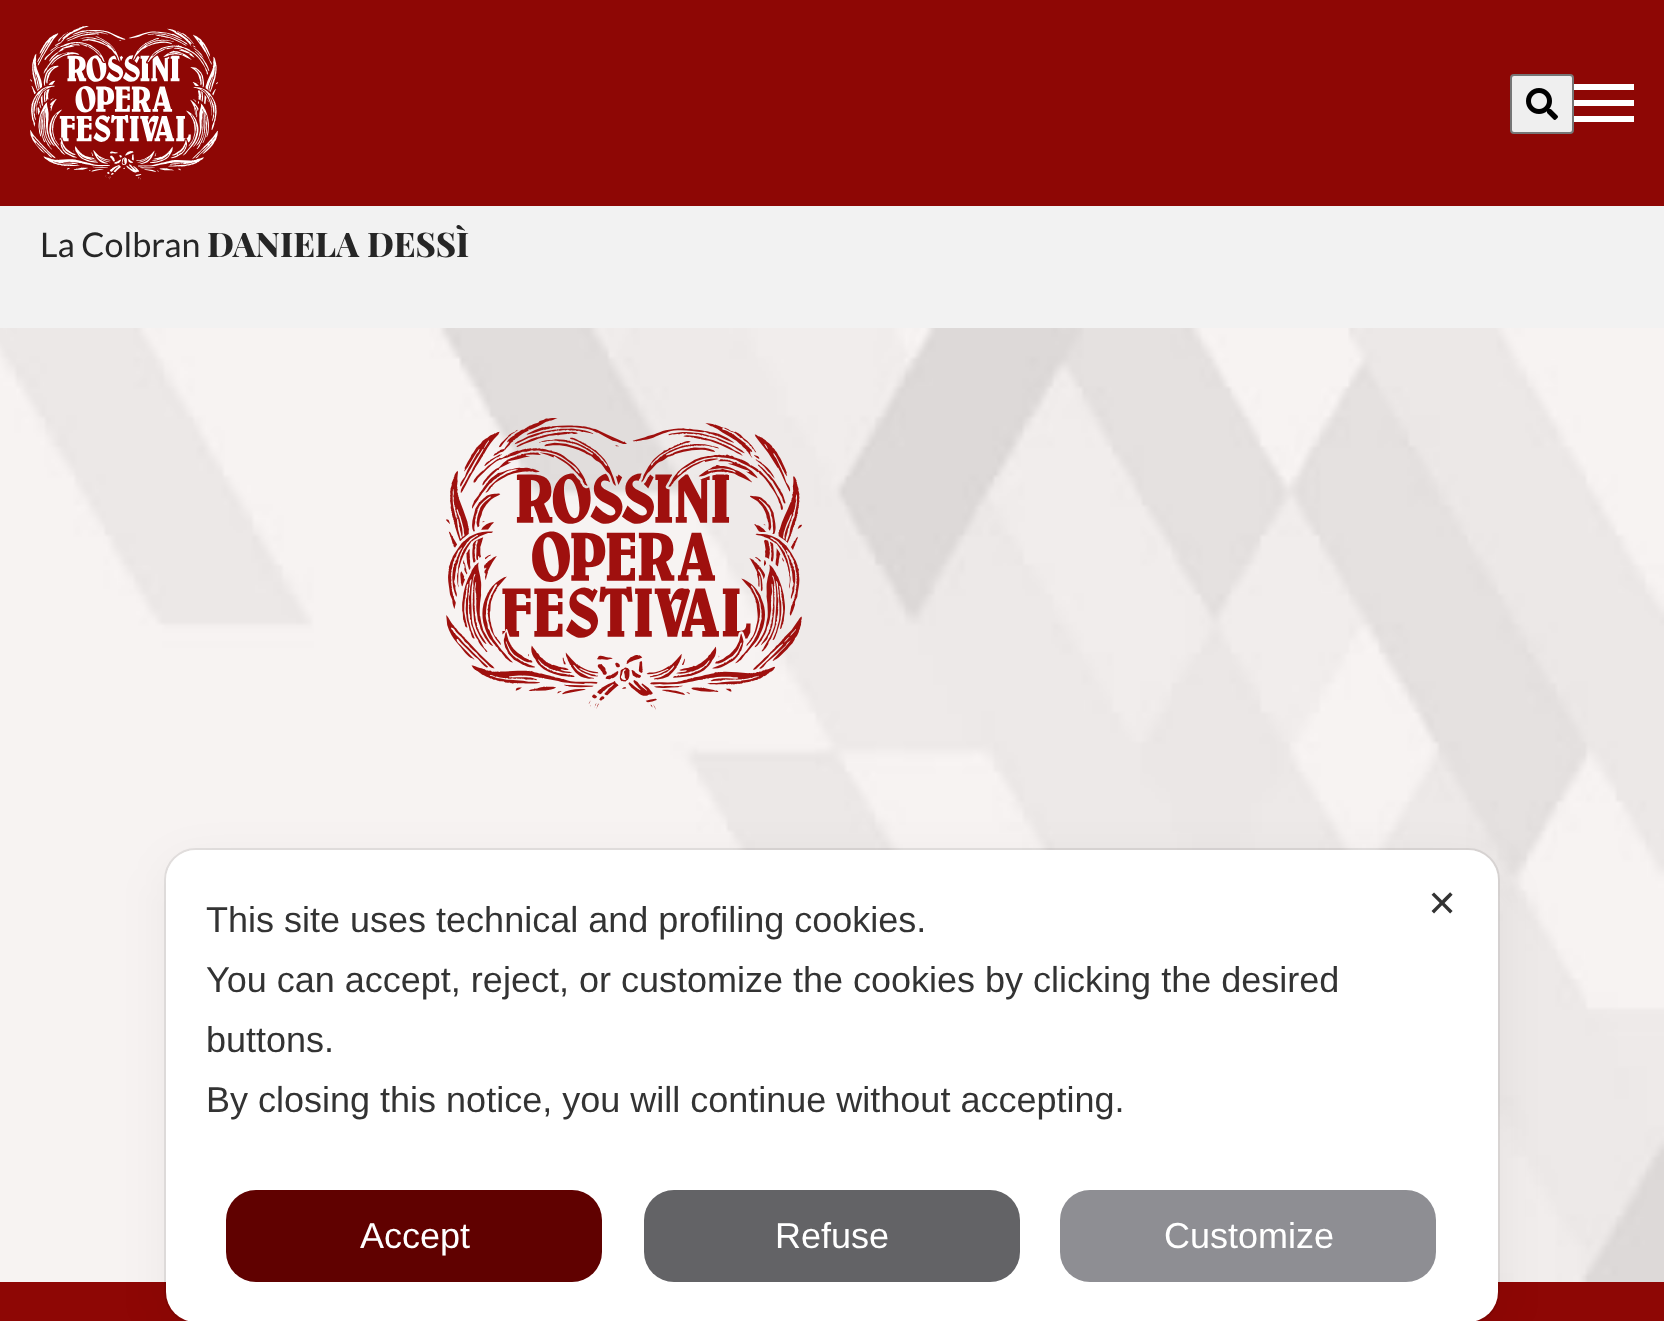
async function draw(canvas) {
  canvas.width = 1664;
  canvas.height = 1321;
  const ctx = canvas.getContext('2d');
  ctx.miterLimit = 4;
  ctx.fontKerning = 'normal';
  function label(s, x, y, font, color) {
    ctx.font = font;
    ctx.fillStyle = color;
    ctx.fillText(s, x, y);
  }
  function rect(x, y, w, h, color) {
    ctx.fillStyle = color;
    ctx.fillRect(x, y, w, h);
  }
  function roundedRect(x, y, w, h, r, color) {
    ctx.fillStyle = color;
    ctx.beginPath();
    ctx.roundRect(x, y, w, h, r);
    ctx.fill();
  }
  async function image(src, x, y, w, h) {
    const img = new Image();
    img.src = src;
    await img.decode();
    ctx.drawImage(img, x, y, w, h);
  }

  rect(0, 0, 1664, 1321, '#f2f2f2');
  rect(0, 0, 1664, 206, '#8e0705');
  await image('assets/img1.png', 30, 26, 188, 154);
  ctx.fillStyle = '#efefef';
  ctx.beginPath();
  ctx.roundRect(1511, 75, 62, 58, 3);
  ctx.fill();
  ctx.strokeStyle = '#767676';
  ctx.lineWidth = 2;
  ctx.stroke();
  await image('assets/img2.png', 1526, 88, 32, 32);
  rect(1574, 84, 60, 6, '#fff');
  rect(1574, 100, 60, 6, '#fff');
  rect(1574, 116, 60, 6, '#fff');
  label('La Colbran', 40, 257, '34px Lato', '#262626');
  label('DANIELA DESSÌ', 207, 257, '800 34px Playfair Display', '#262626');
  await image('assets/img3.png', 0, 328, 1664, 954);
  await image('assets/img4.png', 446, 418, 356, 292);
  rect(0, 1282, 1664, 39, '#8e0705');
  ctx.beginPath();
  ctx.roundRect(165, 849, 1334, 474, 31);
  ctx.strokeStyle = '#00000014';
  ctx.stroke();
  ctx.fillStyle = '#0000000d';
  ctx.filter = 'blur(24px)';
  ctx.beginPath();
  ctx.roundRect(166, 862, 1332, 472, 30);
  ctx.fill();
  ctx.filter = 'none';
  roundedRect(166, 850, 1332, 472, 30, '#fff');
  label('This site uses technical and profiling cookies.', 206, 932, '36px Liberation Sans', '#333');
  label('You can accept, reject, or customize the cookies by clicking the desired', 206, 992, '36px Liberation Sans', '#333');
  label('buttons.', 206, 1052, '36px Liberation Sans', '#333');
  label('By closing this notice, you will continue without accepting.', 206, 1112, '36px Liberation Sans', '#333');
  roundedRect(226, 1190, 376, 92, 30, '#600100');
  label('Accept', 360, 1248, '36px Liberation Sans', '#fff');
  roundedRect(644, 1190, 376, 92, 30, '#636366');
  label('Refuse', 775, 1248, '36px Liberation Sans', '#fff');
  roundedRect(1060, 1190, 376, 92, 30, '#8e8e93');
  label('Customize', 1164, 1248, '36px Liberation Sans', '#fff');
  label('✕', 1427, 916, '36px DejaVu Sans', '#333');
}

draw(document.querySelector('canvas'));
